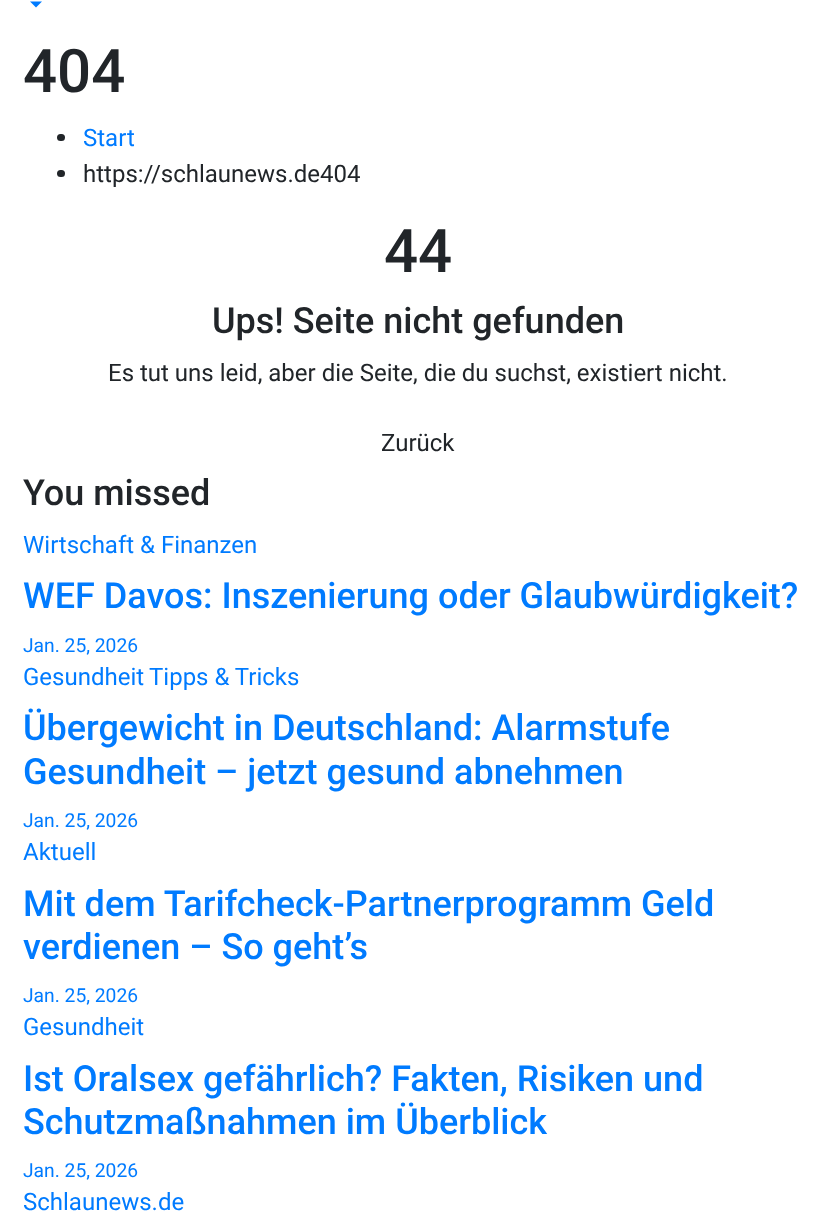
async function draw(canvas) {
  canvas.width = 835;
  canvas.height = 1213;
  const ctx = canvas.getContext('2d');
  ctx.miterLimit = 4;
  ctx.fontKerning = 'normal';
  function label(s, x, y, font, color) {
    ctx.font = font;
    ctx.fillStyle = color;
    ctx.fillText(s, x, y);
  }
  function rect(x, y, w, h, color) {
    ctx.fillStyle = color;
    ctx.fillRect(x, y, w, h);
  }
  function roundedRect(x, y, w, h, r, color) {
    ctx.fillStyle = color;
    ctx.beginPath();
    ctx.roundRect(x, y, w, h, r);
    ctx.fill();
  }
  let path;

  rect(0, 0, 835, 1213, '#fff');
  ctx.fillStyle = '#007bff';
  path = new Path2D('M30 1.5H42L36 7.5Z');
  ctx.fill(path);
  label('404', 23, 92, '500 60px Roboto', '#212529');
  roundedRect(57, 134, 8, 7, 3.5, '#212529');
  label('Start', 83, 146, '24px Roboto', '#007bff');
  roundedRect(57, 170, 8, 7, 3.5, '#212529');
  label('https://schlaunews.de404', 83, 182, '24px Roboto', '#212529');
  label('44', 384, 272, '500 60px Roboto', '#212529');
  label('Ups! Seite nicht gefunden', 212, 333, '500 36px Roboto', '#212529');
  label('Es tut uns leid, aber die Seite, die du suchst, existiert nicht.', 108, 381, '24px Roboto', '#212529');
  label('Zurück', 381, 451, '24px Roboto', '#212529');
  label('You missed', 23, 505, '500 36px Roboto', '#212529');
  label('Wirtschaft & Finanzen', 23, 553, '24px Roboto', '#007bff');
  label('WEF Davos: Inszenierung oder Glaubwürdigkeit?', 23, 608, '500 36px Roboto', '#007bff');
  label('Jan. 25, 2026', 23, 652, '19.25px Roboto', '#007bff');
  label('Gesundheit', 23, 685, '24px Roboto', '#007bff');
  label('Tipps & Tricks', 149, 685, '24px Roboto', '#007bff');
  label('Übergewicht in Deutschland: Alarmstufe', 23, 740, '500 36px Roboto', '#007bff');
  label('Gesundheit – jetzt gesund abnehmen', 23, 784, '500 36px Roboto', '#007bff');
  label('Jan. 25, 2026', 23, 827, '19.25px Roboto', '#007bff');
  label('Aktuell', 23, 860, '24px Roboto', '#007bff');
  label('Mit dem Tarifcheck-Partnerprogramm Geld', 23, 916, '500 36px Roboto', '#007bff');
  label('verdienen – So geht’s', 23, 959, '500 36px Roboto', '#007bff');
  label('Jan. 25, 2026', 23, 1002, '19.25px Roboto', '#007bff');
  label('Gesundheit', 23, 1035, '24px Roboto', '#007bff');
  label('Ist Oralsex gefährlich? Fakten, Risiken und', 23, 1091, '500 36px Roboto', '#007bff');
  label('Schutzmaßnahmen im Überblick', 23, 1134, '500 36px Roboto', '#007bff');
  label('Jan. 25, 2026', 23, 1177, '19.25px Roboto', '#007bff');
  label('Schlaunews.de', 23, 1210, '24px Roboto', '#007bff');
}

draw(document.querySelector('canvas'));
